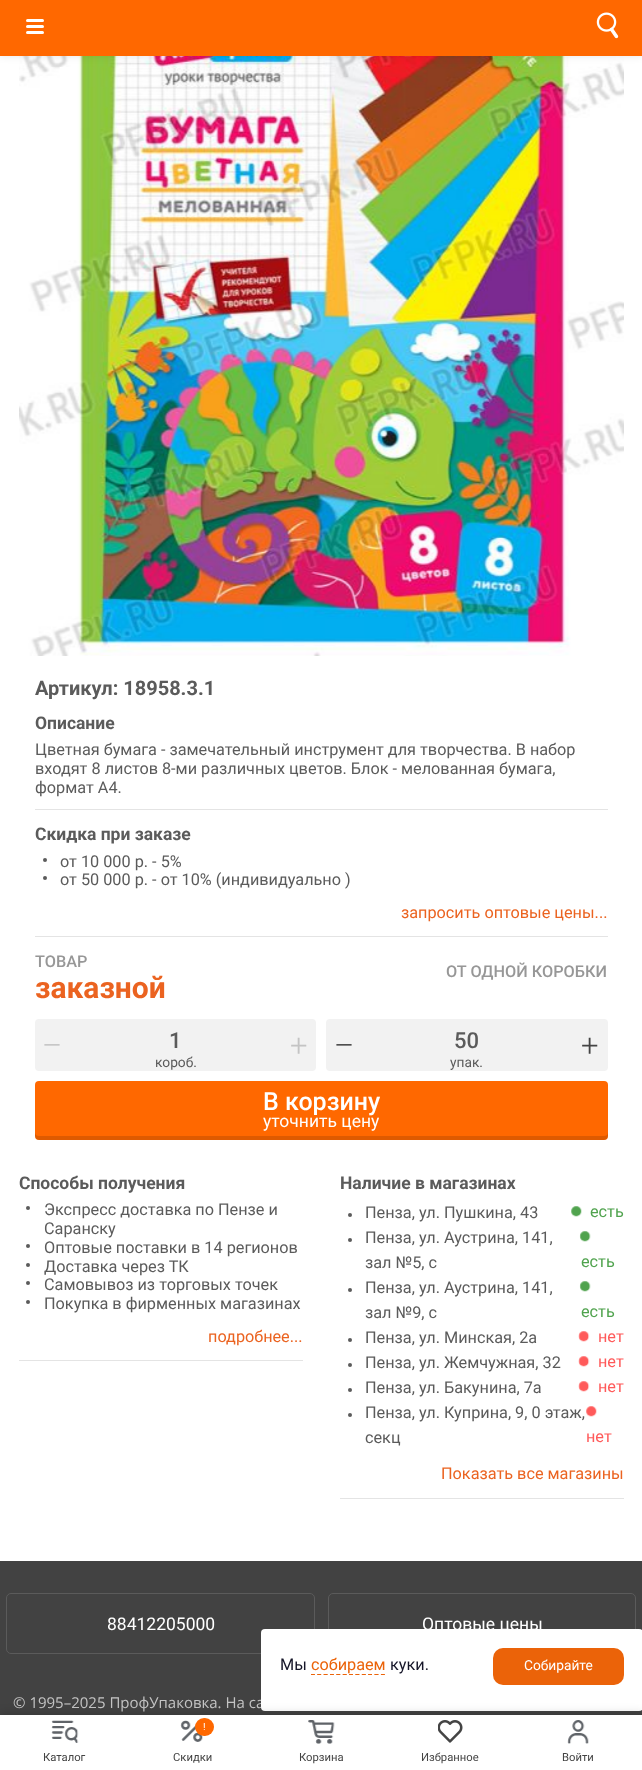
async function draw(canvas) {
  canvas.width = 642;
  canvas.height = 1770;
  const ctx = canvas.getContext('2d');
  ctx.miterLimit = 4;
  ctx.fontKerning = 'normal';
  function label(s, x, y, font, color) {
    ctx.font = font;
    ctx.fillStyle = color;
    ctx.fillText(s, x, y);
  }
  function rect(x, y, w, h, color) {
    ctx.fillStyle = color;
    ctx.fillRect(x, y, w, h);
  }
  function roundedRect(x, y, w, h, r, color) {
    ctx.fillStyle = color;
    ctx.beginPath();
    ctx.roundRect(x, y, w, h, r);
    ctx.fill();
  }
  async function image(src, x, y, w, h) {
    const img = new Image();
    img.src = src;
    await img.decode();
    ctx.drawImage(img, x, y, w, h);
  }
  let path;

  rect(0, 0, 642, 1770, '#fff');
  await image('assets/img2.png', 19, 56, 605, 600);
  ctx.fillStyle = '#00000026';
  ctx.filter = 'blur(5px)';
  ctx.beginPath();
  ctx.rect(0, -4, 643, 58);
  ctx.fill();
  ctx.filter = 'none';
  rect(0, 0, 642, 56, '#ff6800');
  roundedRect(26, 19, 18, 3, 1.5, '#fff');
  roundedRect(26, 25, 18, 3, 1.5, '#fff');
  roundedRect(26, 31, 18, 3, 1.5, '#fff');
  await image('assets/img1.png', 596, 12, 23, 27);
  label('Артикул: 18958.3.1', 35, 695, 'bold 20px Roboto', '#5b5b5b');
  rect(35, 809, 573, 1, '#e4e4e4');
  label('Описание', 35, 729, 'bold 17.5px Roboto', '#5b5b5b');
  label('Цветная бумага - замечательный инструмент для творчества. В набор', 35, 755, '16.25px Roboto', '#5b5b5b');
  label('входят 8 листов 8-ми различных цветов. Блок - мелованная бумага,', 35, 774, '16.25px Roboto', '#5b5b5b');
  label('формат А4.', 35, 793, '16.25px Roboto', '#5b5b5b');
  rect(35, 936, 573, 1, '#e4e4e4');
  label('Скидка при заказе', 35, 840, 'bold 17.5px Roboto', '#5b5b5b');
  ctx.beginPath();
  ctx.arc(45, 860, 2, 0, 2 * Math.PI);
  ctx.fill();
  label('от 10 000 р. - 5%', 60, 867, '16.25px Roboto', '#5b5b5b');
  ctx.beginPath();
  ctx.arc(45, 878, 2, 0, 2 * Math.PI);
  ctx.fill();
  label('от 50 000 р. - от 10% (индивидуально )', 60, 885, '16.25px Roboto', '#5b5b5b');
  label('запросить оптовые цены...', 401, 918, '16.25px Roboto', '#eb6320');
  label('ТОВАР', 35, 967, '500 16.25px Roboto', '#979797');
  label('заказной', 35, 998, 'bold 30px Roboto', '#eb6320');
  label('ОТ ОДНОЙ КОРОБКИ', 446, 977, '500 16.25px Roboto', '#979797');
  roundedRect(35, 1019, 281, 52, 4, '#f2f2f2');
  label('–', 42, 1056, '300 31px Roboto', '#c4c4c4');
  label('1', 169, 1048, '500 22px Roboto', '#5b5b5b');
  label('короб.', 155, 1067, '13.75px Roboto', '#5b5b5b');
  label('+', 290, 1056, '300 31px Roboto', '#c4c4c4');
  roundedRect(326, 1019, 282, 52, 4, '#f2f2f2');
  label('–', 334, 1056, '300 31px Roboto', '#444');
  label('50', 454, 1048, '500 22px Roboto', '#5b5b5b');
  label('упак.', 450, 1067, '13.75px Roboto', '#5b5b5b');
  label('+', 581, 1056, '300 31px Roboto', '#444');
  roundedRect(35, 1081, 573, 59, 4, '#ff6800');
  ctx.fillStyle = '#00000021';
  path = new Path2D('M35 1132V1136C35 1138 37 1140 39 1140H604C606 1140 608 1138 608 1136V1132C608 1135 606 1136 604 1136H39C37 1136 35 1135 35 1132Z');
  ctx.fill(path);
  label('В корзину', 263, 1110, '500 25px Roboto', '#fff');
  label('уточнить цену', 263, 1127, '17.5px Roboto', '#fff');
  rect(19, 1360, 284, 1, '#e4e4e4');
  label('Способы получения', 19, 1189, 'bold 17.5px Roboto', '#5b5b5b');
  ctx.beginPath();
  ctx.arc(28, 1208, 2, 0, 2 * Math.PI);
  ctx.fill();
  label('Экспресс доставка по Пензе и', 44, 1215, '16.25px Roboto', '#5b5b5b');
  label('Саранску', 44, 1234, '16.25px Roboto', '#5b5b5b');
  ctx.beginPath();
  ctx.arc(28, 1246, 2, 0, 2 * Math.PI);
  ctx.fill();
  label('Оптовые поставки в 14 регионов', 44, 1253, '16.25px Roboto', '#5b5b5b');
  ctx.beginPath();
  ctx.arc(28, 1265, 2, 0, 2 * Math.PI);
  ctx.fill();
  label('Доставка через ТК', 44, 1272, '16.25px Roboto', '#5b5b5b');
  ctx.beginPath();
  ctx.arc(28, 1283, 2, 0, 2 * Math.PI);
  ctx.fill();
  label('Самовывоз из торговых точек', 44, 1290, '16.25px Roboto', '#5b5b5b');
  ctx.beginPath();
  ctx.arc(28, 1302, 2, 0, 2 * Math.PI);
  ctx.fill();
  label('Покупка в фирменных магазинах', 44, 1309, '16.25px Roboto', '#5b5b5b');
  label('подробнее...', 208, 1342, '16.25px Roboto', '#eb6320');
  rect(340, 1498, 284, 1, '#e4e4e4');
  label('Наличие в магазинах', 340, 1189, 'bold 17.5px Roboto', '#5b5b5b');
  ctx.beginPath();
  ctx.arc(350, 1215, 2, 0, 2 * Math.PI);
  ctx.fill();
  label('Пенза, ул. Пушкина, 43', 365, 1218, '16.25px Roboto', '#5b5b5b');
  await image('assets/img3.png', 571, 1206, 11, 11);
  label('есть', 590, 1217, '16.25px Roboto', '#50a34e');
  ctx.fillStyle = '#5b5b5b';
  ctx.beginPath();
  ctx.arc(350, 1240, 2, 0, 2 * Math.PI);
  ctx.fill();
  label('Пенза, ул. Аустрина, 141,', 365, 1243, '16.25px Roboto', '#5b5b5b');
  label('зал №5, с', 365, 1268, '16.25px Roboto', '#5b5b5b');
  await image('assets/img4.png', 579, 1231, 12, 11);
  label('есть', 581, 1267, '16.25px Roboto', '#50a34e');
  ctx.fillStyle = '#5b5b5b';
  ctx.beginPath();
  ctx.arc(350, 1290, 2, 0, 2 * Math.PI);
  ctx.fill();
  label('Пенза, ул. Аустрина, 141,', 365, 1293, '16.25px Roboto', '#5b5b5b');
  label('зал №9, с', 365, 1318, '16.25px Roboto', '#5b5b5b');
  await image('assets/img4.png', 579, 1281, 12, 11);
  label('есть', 581, 1317, '16.25px Roboto', '#50a34e');
  ctx.fillStyle = '#5b5b5b';
  ctx.beginPath();
  ctx.arc(350, 1340, 2, 0, 2 * Math.PI);
  ctx.fill();
  label('Пенза, ул. Минская, 2а', 365, 1343, '16.25px Roboto', '#5b5b5b');
  await image('assets/img5.png', 578, 1331, 12, 11);
  label('нет', 598, 1342, '16.25px Roboto', '#ff5a5a');
  ctx.fillStyle = '#5b5b5b';
  ctx.beginPath();
  ctx.arc(350, 1365, 2, 0, 2 * Math.PI);
  ctx.fill();
  label('Пенза, ул. Жемчужная, 32', 365, 1368, '16.25px Roboto', '#5b5b5b');
  await image('assets/img5.png', 578, 1356, 12, 11);
  label('нет', 598, 1367, '16.25px Roboto', '#ff5a5a');
  ctx.fillStyle = '#5b5b5b';
  ctx.beginPath();
  ctx.arc(350, 1390, 2, 0, 2 * Math.PI);
  ctx.fill();
  label('Пенза, ул. Бакунина, 7а', 365, 1393, '16.25px Roboto', '#5b5b5b');
  await image('assets/img5.png', 578, 1381, 12, 11);
  label('нет', 598, 1392, '16.25px Roboto', '#ff5a5a');
  ctx.fillStyle = '#5b5b5b';
  ctx.beginPath();
  ctx.arc(350, 1415, 2, 0, 2 * Math.PI);
  ctx.fill();
  label('Пенза, ул. Куприна, 9, 0 этаж,', 365, 1418, '16.25px Roboto', '#5b5b5b');
  label('секц', 365, 1443, '16.25px Roboto', '#5b5b5b');
  await image('assets/img6.png', 586, 1406, 11, 11);
  label('нет', 586, 1442, '16.25px Roboto', '#ff5a5a');
  label('Показать все магазины', 441, 1479, '16.25px Roboto', '#eb6320');
  rect(0, 1561, 642, 154, '#424242');
  ctx.beginPath();
  ctx.roundRect(6.5, 1593.5, 308, 60, 4.5);
  ctx.strokeStyle = '#5b5b5b';
  ctx.stroke();
  label('88412205000', 107, 1630, '17.5px Roboto', '#fff');
  ctx.beginPath();
  ctx.roundRect(328.5, 1593.5, 307, 60, 4.5);
  ctx.stroke();
  label('Оптовые цены', 422, 1630, '17.5px Roboto', '#fff');
  label('© 1995–2025 ПрофУпаковка. На са', 13, 1708, '15px Open Sans', '#c4c4c4');
  roundedRect(261, 1629, 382, 82, 4, '#fff');
  label('Мы', 280, 1670, '16.25px Roboto', '#151528');
  path = new Path2D('M311 1674.5H385');
  ctx.strokeStyle = '#eb6309';
  ctx.lineWidth = 1.2;
  ctx.setLineDash([3.75, 2.61]);
  ctx.stroke(path);
  path = new Path2D('M311 1674.5H385');
  ctx.stroke(path);
  label('собираем', 311, 1670, '16.25px Roboto', '#eb6309');
  label('куки.', 390, 1670, '16.25px Roboto', '#151528');
  roundedRect(493, 1648, 131, 37, 10, '#eb6309');
  label('Собирайте', 524, 1670, '13.75px Roboto', '#fff');
  ctx.fillStyle = '#00000026';
  ctx.filter = 'blur(5px)';
  ctx.beginPath();
  ctx.rect(0, 1713, 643, 56);
  ctx.fill();
  ctx.filter = 'none';
  rect(0, 1715, 642, 55, '#fff');
  await image('assets/img7.png', 51, 1720, 28, 23);
  label('Каталог', 43, 1761, '11.25px Roboto', '#444');
  await image('assets/img8.png', 180, 1720, 23, 22);
  roundedRect(195, 1718, 19, 18, 9, '#ff6800');
  label('!', 203, 1730, '10px Roboto', '#fff');
  label('Скидки', 173, 1761, '11.25px Roboto', '#444');
  await image('assets/img9.png', 308, 1720, 27, 24);
  label('Корзина', 299, 1761, '11.25px Roboto', '#444');
  await image('assets/img10.png', 438, 1720, 25, 23);
  label('Избранное', 421, 1761, '11.25px Roboto', '#444');
  await image('assets/img11.png', 567, 1720, 22, 24);
  label('Войти', 562, 1761, '11.25px Roboto', '#444');
}

draw(document.querySelector('canvas'));
